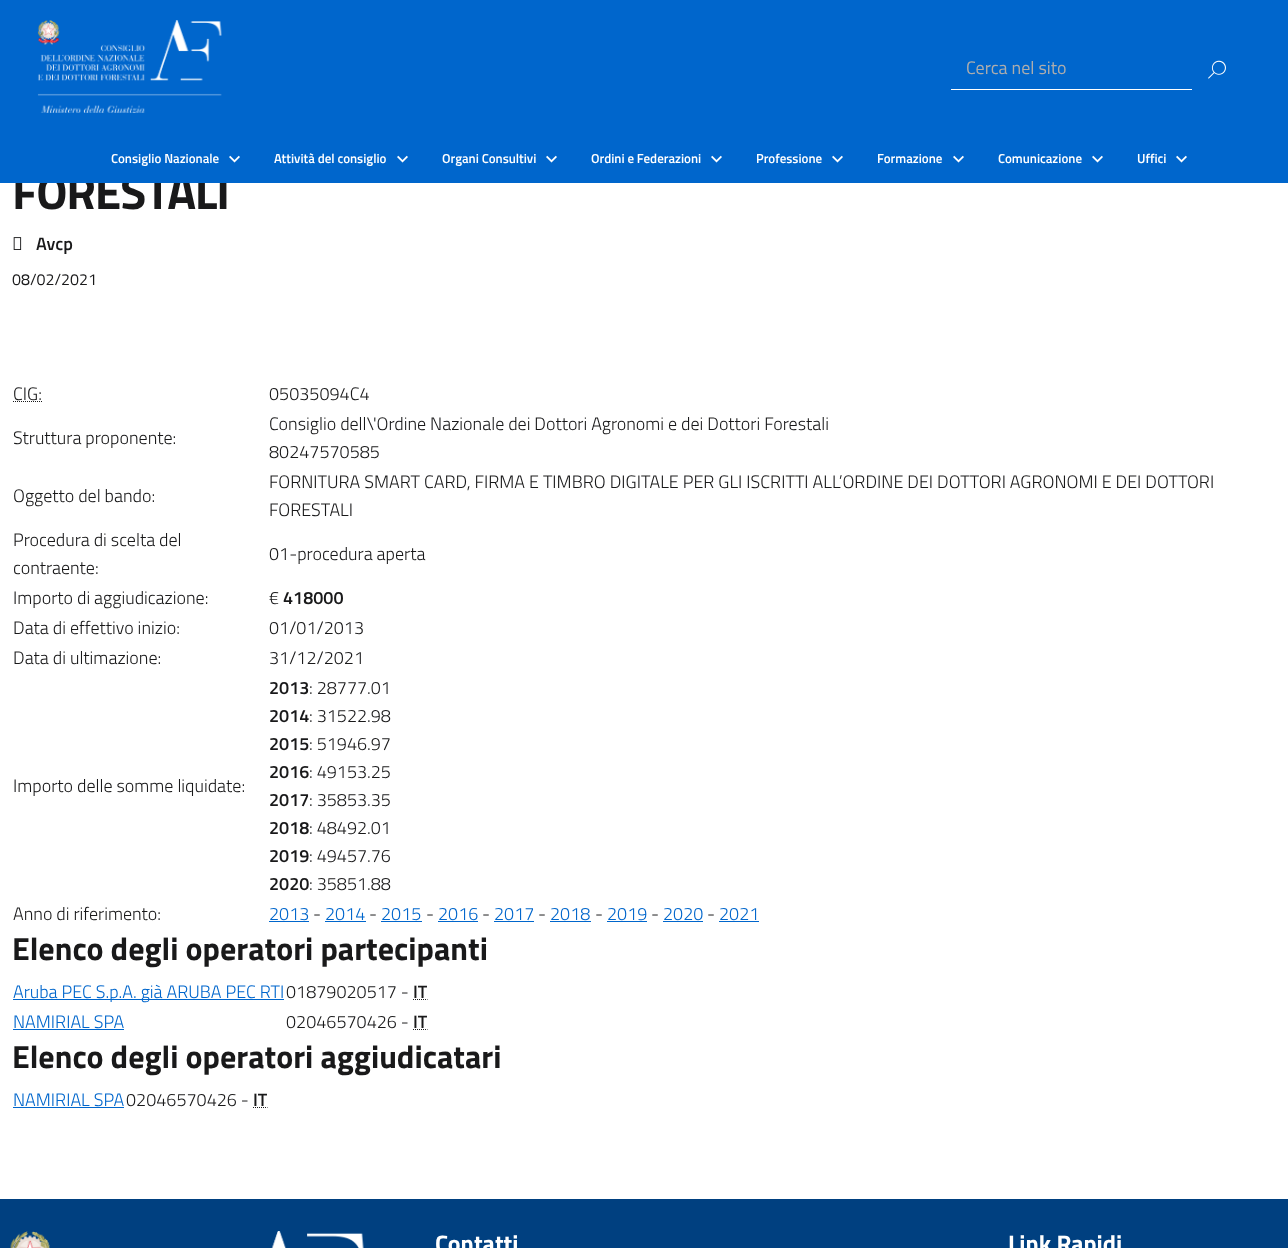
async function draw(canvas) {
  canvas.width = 1288;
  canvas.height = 1248;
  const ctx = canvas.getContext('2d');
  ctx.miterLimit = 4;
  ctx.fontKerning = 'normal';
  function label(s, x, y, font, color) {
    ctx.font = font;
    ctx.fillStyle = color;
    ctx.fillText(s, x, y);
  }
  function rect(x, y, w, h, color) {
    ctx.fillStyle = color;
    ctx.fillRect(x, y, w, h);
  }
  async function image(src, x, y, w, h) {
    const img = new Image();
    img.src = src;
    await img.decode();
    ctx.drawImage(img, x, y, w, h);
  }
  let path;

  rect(0, 0, 1288, 1248, '#fff');
  ctx.letterSpacing = '-1.25px';
  label('FORESTALI', 12, 209, 'bold 48px Titillium Web', '#19191a');
  rect(0, 0, 1288, 183, '#06c');
  await image('assets/img1.png', 37, 20, 185, 93);
  rect(951, 89, 241, 1, '#fff');
  ctx.letterSpacing = '0px';
  label('Cerca nel sito', 966, 74, '18px Titillium Web', '#adadad');
  await image('assets/img2.png', 1208, 60, 18, 19);
  label('Consiglio Nazionale', 111, 163, '600 13px Titillium Web', '#fff');
  await image('assets/img3.png', 229, 155, 11, 8);
  label('Attività del consiglio', 274, 163, '600 13px Titillium Web', '#fff');
  await image('assets/img3.png', 397, 155, 11, 8);
  label('Organi Consultivi', 442, 163, '600 13px Titillium Web', '#fff');
  await image('assets/img3.png', 546, 155, 11, 8);
  label('Ordini e Federazioni', 591, 163, '600 13px Titillium Web', '#fff');
  await image('assets/img3.png', 711, 155, 11, 8);
  label('Professione', 756, 163, '600 13px Titillium Web', '#fff');
  await image('assets/img3.png', 832, 155, 11, 8);
  label('Formazione', 877, 163, '600 13px Titillium Web', '#fff');
  await image('assets/img3.png', 953, 155, 11, 8);
  label('Comunicazione', 998, 163, '600 13px Titillium Web', '#fff');
  await image('assets/img3.png', 1092, 155, 11, 8);
  label('Uffici', 1137, 163, '600 13px Titillium Web', '#fff');
  await image('assets/img3.png', 1176, 155, 11, 8);
  await image('assets/img4.png', 13, 237, 9, 13);
  label('Avcp', 36, 250, '600 18px Titillium Web', '#19191a');
  label('08/02/2021', 12, 285, '16px Titillium Web', '#19191a');
  label('CIG:', 13, 400, '300 18px Titillium Web', '#19191a');
  path = new Path2D('M13 401.5H42');
  ctx.strokeStyle = '#19191a';
  ctx.setLineDash([1, 1]);
  ctx.stroke(path);
  label('05035094C4', 269, 400, '300 18px Titillium Web', '#19191a');
  label('Struttura proponente:', 13, 444, '300 18px Titillium Web', '#19191a');
  label('Consiglio dell\\\'Ordine Nazionale dei Dottori Agronomi e dei Dottori Forestali', 269, 430, '300 18px Titillium Web', '#19191a');
  label('80247570585', 269, 458, '300 18px Titillium Web', '#19191a');
  label('Oggetto del bando:', 13, 502, '300 18px Titillium Web', '#19191a');
  label('FORNITURA SMART CARD, FIRMA E TIMBRO DIGITALE PER GLI ISCRITTI ALL’ORDINE DEI DOTTORI AGRONOMI E DEI DOTTORI', 269, 488, '300 18px Titillium Web', '#19191a');
  label('FORESTALI', 269, 516, '300 18px Titillium Web', '#19191a');
  label('Procedura di scelta del', 13, 546, '300 18px Titillium Web', '#19191a');
  label('contraente:', 13, 574, '300 18px Titillium Web', '#19191a');
  label('01-procedura aperta', 269, 560, '300 18px Titillium Web', '#19191a');
  label('Importo di aggiudicazione:', 13, 604, '300 18px Titillium Web', '#19191a');
  label('€', 269, 604, '300 18px Titillium Web', '#19191a');
  label('418000', 283, 604, '600 18px Titillium Web', '#19191a');
  label('Data di effettivo inizio:', 13, 634, '300 18px Titillium Web', '#19191a');
  label('01/01/2013', 269, 634, '300 18px Titillium Web', '#19191a');
  label('Data di ultimazione:', 13, 664, '300 18px Titillium Web', '#19191a');
  label('31/12/2021', 269, 664, '300 18px Titillium Web', '#19191a');
  label('Importo delle somme liquidate:', 13, 792, '300 18px Titillium Web', '#19191a');
  label('2013', 269, 694, '600 18px Titillium Web', '#19191a');
  label(': 28777.01', 309, 694, '300 18px Titillium Web', '#19191a');
  label('2014', 269, 722, '600 18px Titillium Web', '#19191a');
  label(': 31522.98', 309, 722, '300 18px Titillium Web', '#19191a');
  label('2015', 269, 750, '600 18px Titillium Web', '#19191a');
  label(': 51946.97', 309, 750, '300 18px Titillium Web', '#19191a');
  label('2016', 269, 778, '600 18px Titillium Web', '#19191a');
  label(': 49153.25', 309, 778, '300 18px Titillium Web', '#19191a');
  label('2017', 269, 806, '600 18px Titillium Web', '#19191a');
  label(': 35853.35', 309, 806, '300 18px Titillium Web', '#19191a');
  label('2018', 269, 834, '600 18px Titillium Web', '#19191a');
  label(': 48492.01', 309, 834, '300 18px Titillium Web', '#19191a');
  label('2019', 269, 862, '600 18px Titillium Web', '#19191a');
  label(': 49457.76', 309, 862, '300 18px Titillium Web', '#19191a');
  label('2020', 269, 890, '600 18px Titillium Web', '#19191a');
  label(': 35851.88', 309, 890, '300 18px Titillium Web', '#19191a');
  label('Anno di riferimento:', 13, 920, '300 18px Titillium Web', '#19191a');
  label('2013', 269, 920, '300 18px Titillium Web', '#06c');
  rect(269, 921, 40, 1, '#06c');
  label('-', 313, 920, '300 18px Titillium Web', '#19191a');
  label('2014', 325, 920, '300 18px Titillium Web', '#06c');
  rect(325, 921, 41, 1, '#06c');
  label('-', 369, 920, '300 18px Titillium Web', '#19191a');
  label('2015', 381, 920, '300 18px Titillium Web', '#06c');
  rect(381, 921, 41, 1, '#06c');
  label('-', 426, 920, '300 18px Titillium Web', '#19191a');
  label('2016', 438, 920, '300 18px Titillium Web', '#06c');
  rect(438, 921, 40, 1, '#06c');
  label('-', 482, 920, '300 18px Titillium Web', '#19191a');
  label('2017', 494, 920, '300 18px Titillium Web', '#06c');
  rect(494, 921, 40, 1, '#06c');
  label('-', 538, 920, '300 18px Titillium Web', '#19191a');
  label('2018', 550, 920, '300 18px Titillium Web', '#06c');
  rect(550, 921, 41, 1, '#06c');
  label('-', 595, 920, '300 18px Titillium Web', '#19191a');
  label('2019', 607, 920, '300 18px Titillium Web', '#06c');
  rect(607, 921, 40, 1, '#06c');
  label('-', 651, 920, '300 18px Titillium Web', '#19191a');
  label('2020', 663, 920, '300 18px Titillium Web', '#06c');
  rect(663, 921, 40, 1, '#06c');
  label('-', 707, 920, '300 18px Titillium Web', '#19191a');
  label('2021', 719, 920, '300 18px Titillium Web', '#06c');
  rect(719, 921, 40, 1, '#06c');
  label('Elenco degli operatori partecipanti', 12, 960, 'bold 32px Titillium Web', '#19191a');
  rect(13, 999, 271, 1, '#06c');
  label('Aruba PEC S.p.A. già ARUBA PEC RTI', 13, 998, '300 18px Titillium Web', '#06c');
  label('01879020517 -', 286, 998, '300 18px Titillium Web', '#19191a');
  label('IT', 413, 998, '600 18px Titillium Web', '#19191a');
  path = new Path2D('M413 999.5H427.5');
  ctx.stroke(path);
  label('NAMIRIAL SPA', 13, 1028, '300 18px Titillium Web', '#06c');
  rect(13, 1029, 111, 1, '#06c');
  label('02046570426 -', 286, 1028, '300 18px Titillium Web', '#19191a');
  label('IT', 413, 1028, '600 18px Titillium Web', '#19191a');
  path = new Path2D('M413 1029.5H427.5');
  ctx.stroke(path);
  label('Elenco degli operatori aggiudicatari', 12, 1068, 'bold 32px Titillium Web', '#19191a');
  label('NAMIRIAL SPA', 13, 1106, '300 18px Titillium Web', '#06c');
  rect(13, 1107, 111, 1, '#06c');
  label('02046570426 -', 126, 1106, '300 18px Titillium Web', '#19191a');
  label('IT', 253, 1106, '600 18px Titillium Web', '#19191a');
  path = new Path2D('M253 1107.5H267.5');
  ctx.stroke(path);
  rect(0, 1199, 1288, 49, '#004080');
  await image('assets/img5.png', 10, 1231, 354, 17);
  label('Contatti', 435, 1252, 'bold 24px Titillium Web', '#fff');
  label('Link Rapidi', 1008, 1252, 'bold 24px Titillium Web', '#fff');
}

draw(document.querySelector('canvas'));
